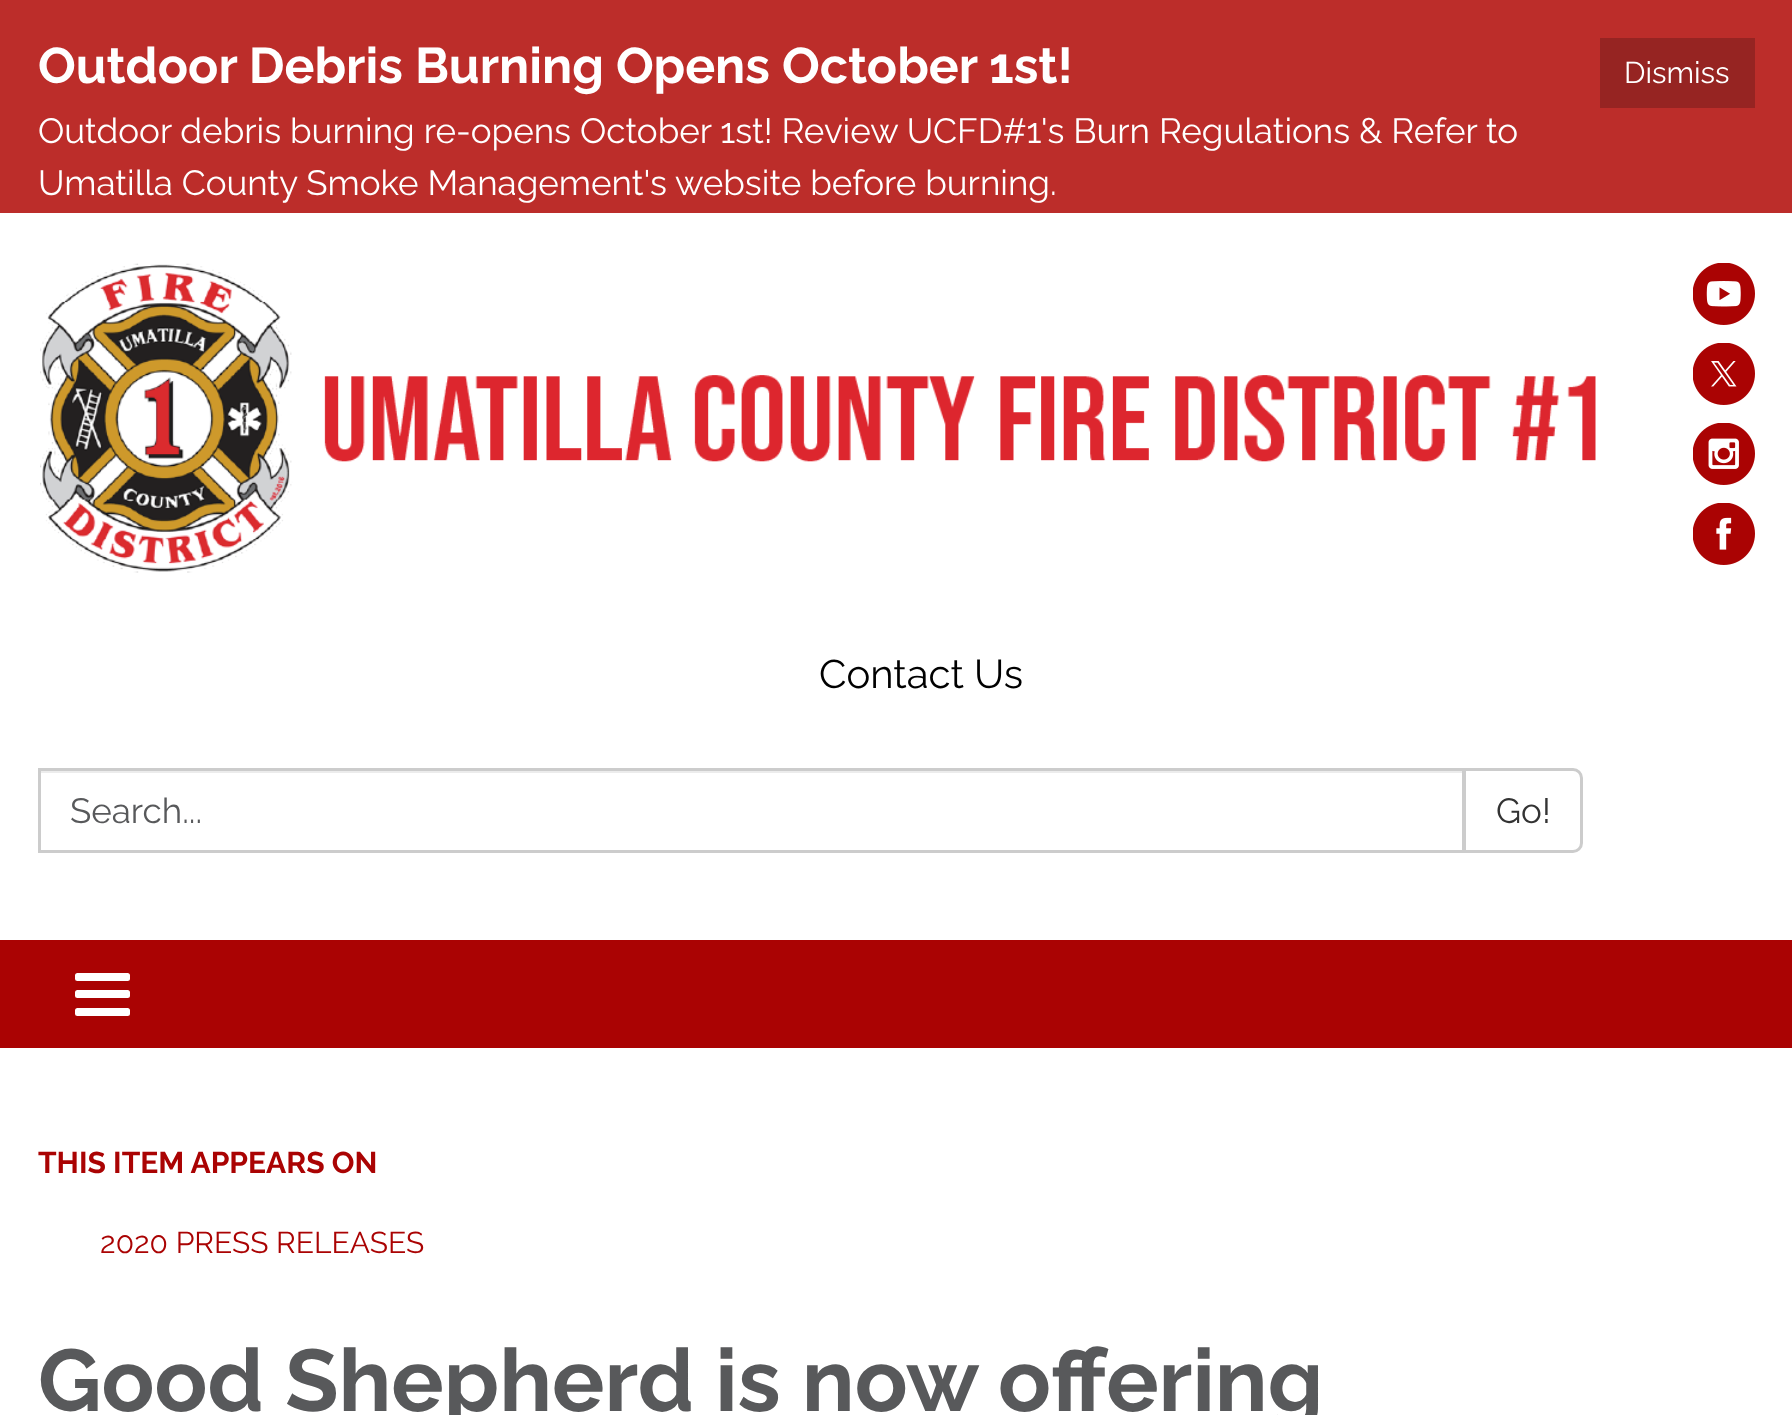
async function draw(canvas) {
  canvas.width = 1792;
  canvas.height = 1415;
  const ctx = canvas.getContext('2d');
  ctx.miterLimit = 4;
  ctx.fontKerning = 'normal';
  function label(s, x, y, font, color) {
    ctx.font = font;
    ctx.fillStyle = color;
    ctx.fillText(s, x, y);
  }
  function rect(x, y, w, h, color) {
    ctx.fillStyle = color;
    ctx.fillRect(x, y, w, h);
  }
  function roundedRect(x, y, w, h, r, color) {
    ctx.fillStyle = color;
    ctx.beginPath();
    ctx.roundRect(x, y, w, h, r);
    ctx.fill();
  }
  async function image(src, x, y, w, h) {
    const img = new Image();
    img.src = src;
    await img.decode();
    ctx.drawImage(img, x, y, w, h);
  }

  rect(0, 0, 1792, 1415, '#fff');
  rect(0, 0, 1792, 213, '#bc2d2a');
  label('Outdoor Debris Burning Opens October 1st!', 38, 83, 'bold 50px Raleway', '#fff');
  rect(1600, 38, 155, 70, '#962422');
  label('Dismiss', 1624, 83, '30px Raleway', '#fff');
  label('Outdoor debris burning re-opens October 1st! Review UCFD#1\'s Burn Regulations & Refer to', 38, 143, '35px Raleway', '#fff');
  label('Umatilla County Smoke Management\'s website before burning.', 38, 195, '35px Raleway', '#fff');
  await image('assets/img1.png', 40, 263, 1556, 310);
  await image('assets/img2.png', 1693, 263, 62, 62);
  await image('assets/img3.png', 1693, 343, 62, 62);
  await image('assets/img4.png', 1693, 423, 62, 62);
  await image('assets/img5.png', 1693, 503, 62, 62);
  label('Contact Us', 819, 688, '40px Raleway', '#000');
  rect(40, 771, 1423, 2, '#ececec');
  ctx.strokeStyle = '#ccc';
  ctx.lineWidth = 3;
  ctx.strokeRect(39.5, 769.5, 1424, 82);
  label('Search...', 70, 823, '35px Raleway', '#58595b');
  ctx.fillStyle = '#fff';
  ctx.beginPath();
  ctx.roundRect(1464.5, 769.5, 117, 82, [0, 8.5, 8.5, 0]);
  ctx.fill();
  ctx.stroke();
  label('Go!', 1496, 823, '35px Raleway', '#333');
  rect(0, 940, 1792, 108, '#aa0303');
  roundedRect(75, 973, 55, 8, 2.5, '#fff');
  roundedRect(75, 990, 55, 8, 2.5, '#fff');
  roundedRect(75, 1008, 55, 8, 2.5, '#fff');
  label('THIS ITEM APPEARS ON', 38, 1173, 'bold 30px Raleway', '#aa0303');
  label('2020 PRESS RELEASES', 100, 1253, '30px Raleway', '#aa0303');
  label('Good Shepherd is now offering', 38, 1411, 'bold 87.5px Raleway', '#58595b');
}

draw(document.querySelector('canvas'));
